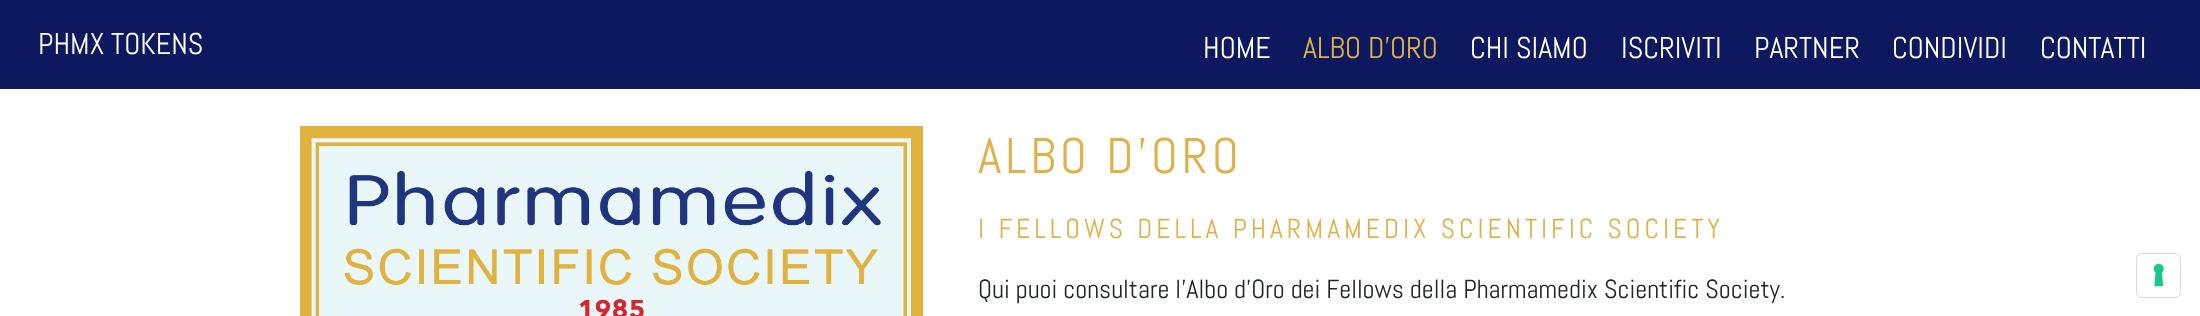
async function draw(canvas) {
  canvas.width = 2200;
  canvas.height = 316;
  const ctx = canvas.getContext('2d');
  ctx.miterLimit = 4;
  ctx.fontKerning = 'normal';
  function label(s, x, y, font, color) {
    ctx.font = font;
    ctx.fillStyle = color;
    ctx.fillText(s, x, y);
  }
  function rect(x, y, w, h, color) {
    ctx.fillStyle = color;
    ctx.fillRect(x, y, w, h);
  }
  function roundedRect(x, y, w, h, r, color) {
    ctx.fillStyle = color;
    ctx.beginPath();
    ctx.roundRect(x, y, w, h, r);
    ctx.fill();
  }
  async function image(src, x, y, w, h) {
    const img = new Image();
    img.src = src;
    await img.decode();
    ctx.drawImage(img, x, y, w, h);
  }

  rect(0, 0, 2200, 316, '#0e185f');
  label('PHMX TOKENS', 38, 54, '30px Abel', '#fff');
  label('HOME', 1203, 58, '30px Abel', '#fff');
  label('ALBO D’ORO', 1303, 58, '30px Abel', '#e0b149');
  label('CHI SIAMO', 1470, 58, '30px Abel', '#fff');
  label('ISCRIVITI', 1621, 58, '30px Abel', '#fff');
  label('PARTNER', 1754, 58, '30px Abel', '#fff');
  label('CONDIVIDI', 1892, 58, '30px Abel', '#fff');
  label('CONTATTI', 2040, 58, '30px Abel', '#fff');
  rect(0, 89, 2200, 227, '#fff');
  await image('assets/img1.png', 300, 126, 623, 190);
  ctx.letterSpacing = '4px';
  label('ALBO D’ORO', 978, 173, '50px Abel', '#e0b149');
  label('I FELLOWS DELLA PHARMAMEDIX SCIENTIFIC SOCIETY', 978, 238, '27.5px Abel', '#e0b149');
  ctx.letterSpacing = '0px';
  label('Qui puoi consultare l’Albo d’Oro dei Fellows della Pharmamedix Scientific Society.', 978, 298, '26.25px Abel', '#212529');
  ctx.beginPath();
  ctx.roundRect(2136.5, 253.5, 44, 44, 5.5);
  ctx.strokeStyle = '#d9d9d9';
  ctx.stroke();
  roundedRect(2138, 254, 42, 42, 5, '#fff');
  await image('assets/img2.png', 2153, 263, 11, 24);
}

draw(document.querySelector('canvas'));
